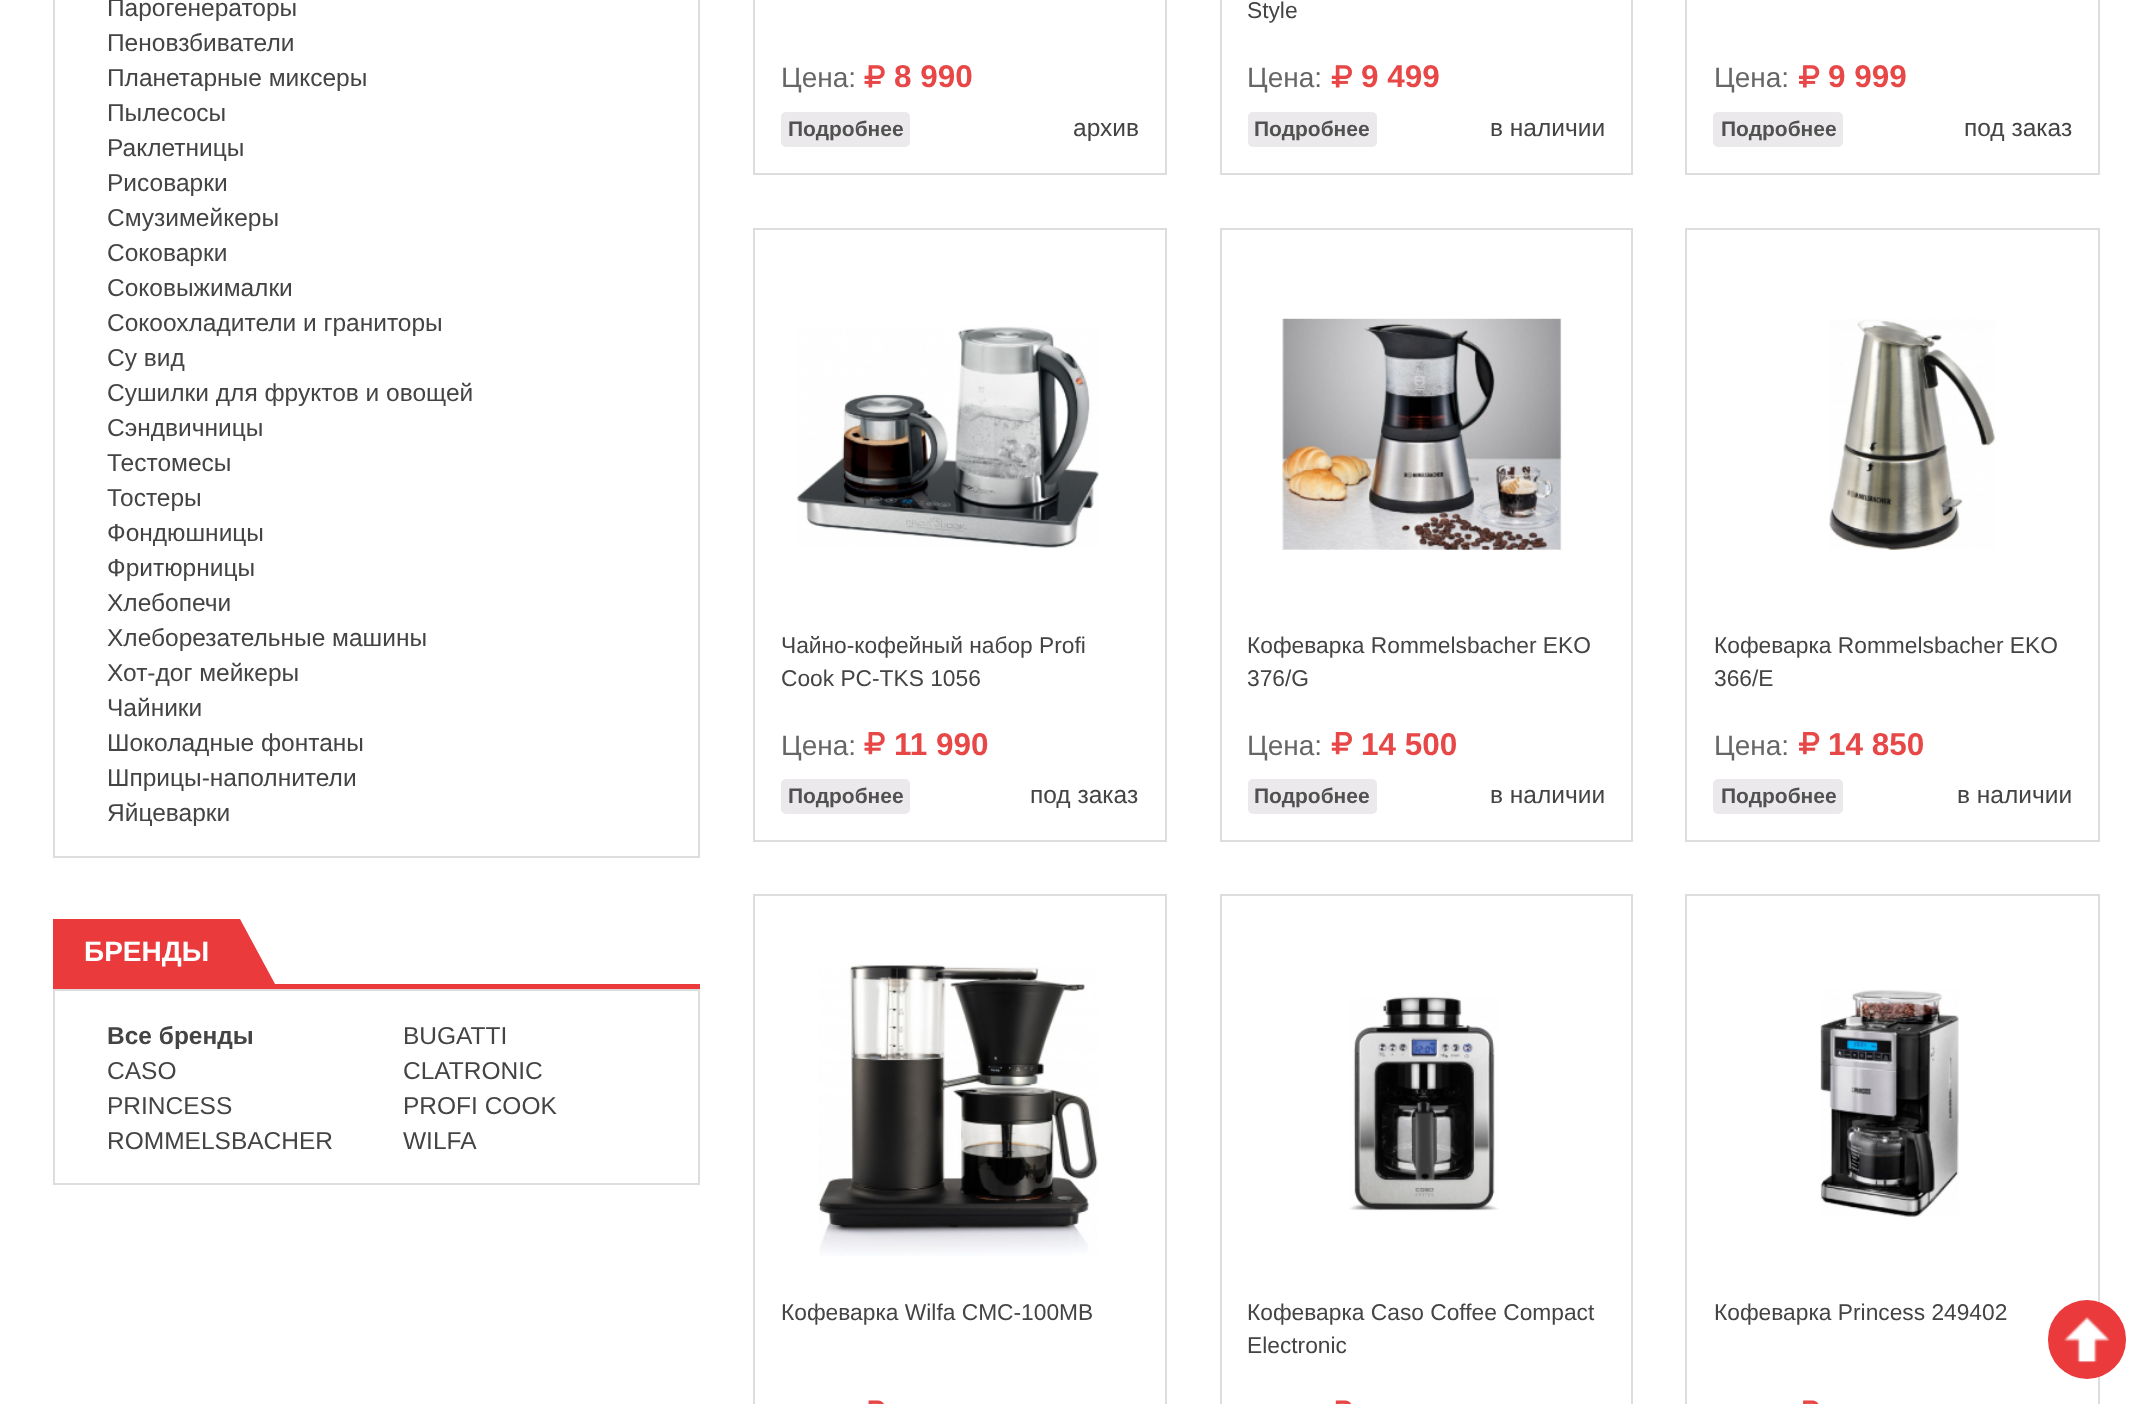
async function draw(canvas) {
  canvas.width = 2151;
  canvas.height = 1404;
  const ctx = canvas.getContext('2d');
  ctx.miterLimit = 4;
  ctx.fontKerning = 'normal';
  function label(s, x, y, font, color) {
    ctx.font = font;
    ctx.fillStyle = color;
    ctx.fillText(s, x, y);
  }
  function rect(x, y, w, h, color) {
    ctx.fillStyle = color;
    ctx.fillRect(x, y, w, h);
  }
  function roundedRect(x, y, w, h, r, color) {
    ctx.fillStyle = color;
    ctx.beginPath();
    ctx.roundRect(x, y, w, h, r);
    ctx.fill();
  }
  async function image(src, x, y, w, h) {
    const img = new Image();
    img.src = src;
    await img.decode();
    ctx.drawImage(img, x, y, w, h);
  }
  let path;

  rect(0, 0, 2151, 1404, '#fff');
  ctx.strokeStyle = '#ddd';
  ctx.lineWidth = 2;
  ctx.strokeRect(54, -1, 645, 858);
  label('Парогенераторы', 107, 16, '24.5px Liberation Sans', '#444');
  label('Пеновзбиватели', 107, 51, '24.5px Liberation Sans', '#444');
  label('Планетарные миксеры', 107, 86, '24.5px Liberation Sans', '#444');
  label('Пылесосы', 107, 121, '24.5px Liberation Sans', '#444');
  label('Раклетницы', 107, 156, '24.5px Liberation Sans', '#444');
  label('Рисоварки', 107, 191, '24.5px Liberation Sans', '#444');
  label('Смузимейкеры', 107, 226, '24.5px Liberation Sans', '#444');
  label('Соковарки', 107, 261, '24.5px Liberation Sans', '#444');
  label('Соковыжималки', 107, 296, '24.5px Liberation Sans', '#444');
  label('Сокоохладители и граниторы', 107, 331, '24.5px Liberation Sans', '#444');
  label('Су вид', 107, 366, '24.5px Liberation Sans', '#444');
  label('Сушилки для фруктов и овощей', 107, 401, '24.5px Liberation Sans', '#444');
  label('Сэндвичницы', 107, 436, '24.5px Liberation Sans', '#444');
  label('Тестомесы', 107, 471, '24.5px Liberation Sans', '#444');
  label('Тостеры', 107, 506, '24.5px Liberation Sans', '#444');
  label('Фондюшницы', 107, 541, '24.5px Liberation Sans', '#444');
  label('Фритюрницы', 107, 576, '24.5px Liberation Sans', '#444');
  label('Хлебопечи', 107, 611, '24.5px Liberation Sans', '#444');
  label('Хлеборезательные машины', 107, 646, '24.5px Liberation Sans', '#444');
  label('Хот-дог мейкеры', 107, 681, '24.5px Liberation Sans', '#444');
  label('Чайники', 107, 716, '24.5px Liberation Sans', '#444');
  label('Шоколадные фонтаны', 107, 751, '24.5px Liberation Sans', '#444');
  label('Шприцы-наполнители', 107, 786, '24.5px Liberation Sans', '#444');
  label('Яйцеварки', 107, 821, '24.5px Liberation Sans', '#444');
  rect(53, 984, 647, 5, '#ea3a3c');
  rect(53, 919, 187, 65, '#ea3a3c');
  label('БРЕНДЫ', 84, 961, 'bold 28px Liberation Sans', '#fff');
  ctx.fillStyle = '#ea3a3c';
  path = new Path2D('M275 984H240V919Z');
  ctx.fill(path);
  ctx.strokeRect(54, 990, 645, 194);
  label('Все бренды', 107, 1044, 'bold 24.5px Liberation Sans', '#444');
  label('BUGATTI', 403, 1044, '24.5px Liberation Sans', '#444');
  label('CASO', 107, 1079, '24.5px Liberation Sans', '#444');
  label('CLATRONIC', 403, 1079, '24.5px Liberation Sans', '#444');
  label('PRINCESS', 107, 1114, '24.5px Liberation Sans', '#444');
  label('PROFI COOK', 403, 1114, '24.5px Liberation Sans', '#444');
  label('ROMMELSBACHER', 107, 1149, '24.5px Liberation Sans', '#444');
  label('WILFA', 403, 1149, '24.5px Liberation Sans', '#444');
  ctx.strokeRect(754, -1, 412, 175);
  label('Цена:', 781, 87, '28px Liberation Sans', '#666');
  await image('assets/img1.png', 864, 65, 21, 23);
  label('8 990', 894, 87, 'bold 31.5px Liberation Sans', '#e74847');
  roundedRect(781, 112, 129, 35, 5, '#ebe9eb');
  label('Подробнее', 788, 136, 'bold 21px Liberation Sans', '#515151');
  label('архив', 1073, 136, '24.5px Liberation Sans', '#444');
  ctx.strokeRect(1221, -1, 411, 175);
  label('Style', 1247, 18, '22.75px Liberation Sans', '#444');
  label('Цена:', 1247, 87, '28px Liberation Sans', '#666');
  await image('assets/img2.png', 1331, 65, 21, 23);
  label('9 499', 1361, 87, 'bold 31.5px Liberation Sans', '#e74847');
  roundedRect(1248, 112, 129, 35, 5, '#ebe9eb');
  label('Подробнее', 1254, 136, 'bold 21px Liberation Sans', '#515151');
  label('в наличии', 1490, 136, '24.5px Liberation Sans', '#444');
  ctx.strokeRect(1686, -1, 413, 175);
  label('Цена:', 1714, 87, '28px Liberation Sans', '#666');
  await image('assets/img3.png', 1799, 65, 21, 23);
  label('9 999', 1828, 87, 'bold 31.5px Liberation Sans', '#e74847');
  roundedRect(1713, 112, 130, 35, 5, '#ebe9eb');
  label('Подробнее', 1721, 136, 'bold 21px Liberation Sans', '#515151');
  label('под заказ', 1964, 136, '24.5px Liberation Sans', '#444');
  ctx.strokeRect(754, 229, 412, 612);
  await image('assets/img4.png', 797, 326, 302, 222);
  label('Чайно-кофейный набор Profi', 781, 653, '22.75px Liberation Sans', '#444');
  label('Cook PC-TKS 1056', 781, 686, '22.75px Liberation Sans', '#444');
  label('Цена:', 781, 755, '28px Liberation Sans', '#666');
  await image('assets/img5.png', 864, 732, 21, 23);
  label('11 990', 894, 755, 'bold 31.5px Liberation Sans', '#e74847');
  roundedRect(781, 779, 129, 35, 5, '#ebe9eb');
  label('Подробнее', 788, 803, 'bold 21px Liberation Sans', '#515151');
  label('под заказ', 1030, 803, '24.5px Liberation Sans', '#444');
  ctx.strokeRect(1221, 229, 411, 612);
  await image('assets/img6.png', 1282, 318, 280, 232);
  label('Кофеварка Rommelsbacher EKO', 1247, 653, '22.75px Liberation Sans', '#444');
  label('376/G', 1247, 686, '22.75px Liberation Sans', '#444');
  label('Цена:', 1247, 755, '28px Liberation Sans', '#666');
  await image('assets/img7.png', 1331, 732, 21, 23);
  label('14 500', 1361, 755, 'bold 31.5px Liberation Sans', '#e74847');
  roundedRect(1248, 779, 129, 35, 5, '#ebe9eb');
  label('Подробнее', 1254, 803, 'bold 21px Liberation Sans', '#515151');
  label('в наличии', 1490, 803, '24.5px Liberation Sans', '#444');
  ctx.strokeRect(1686, 229, 413, 612);
  await image('assets/img8.png', 1829, 319, 167, 231);
  label('Кофеварка Rommelsbacher EKO', 1714, 653, '22.75px Liberation Sans', '#444');
  label('366/E', 1714, 686, '22.75px Liberation Sans', '#444');
  label('Цена:', 1714, 755, '28px Liberation Sans', '#666');
  await image('assets/img9.png', 1799, 732, 21, 23);
  label('14 850', 1828, 755, 'bold 31.5px Liberation Sans', '#e74847');
  roundedRect(1713, 779, 130, 35, 5, '#ebe9eb');
  label('Подробнее', 1721, 803, 'bold 21px Liberation Sans', '#515151');
  label('в наличии', 1957, 803, '24.5px Liberation Sans', '#444');
  ctx.strokeRect(754, 895, 412, 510);
  await image('assets/img10.png', 818, 963, 280, 293);
  label('Кофеварка Wilfa CMC-100MB', 781, 1320, '22.75px Liberation Sans', '#444');
  await image('assets/img11.png', 868, 1400, 16, 4);
  ctx.strokeRect(1221, 895, 411, 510);
  await image('assets/img12.png', 1349, 996, 150, 215);
  label('Кофеварка Caso Coffee Compact', 1247, 1320, '22.75px Liberation Sans', '#444');
  label('Electronic', 1247, 1353, '22.75px Liberation Sans', '#444');
  await image('assets/img13.png', 1335, 1400, 17, 4);
  ctx.strokeRect(1686, 895, 413, 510);
  await image('assets/img14.png', 1820, 989, 139, 228);
  label('Кофеварка Princess 249402', 1714, 1320, '22.75px Liberation Sans', '#444');
  await image('assets/img15.png', 1803, 1400, 16, 4);
  roundedRect(2048, 1300, 78, 79, 39, '#ea3a3c');
  await image('assets/img16.png', 2064, 1317, 46, 46);
}

draw(document.querySelector('canvas'));
